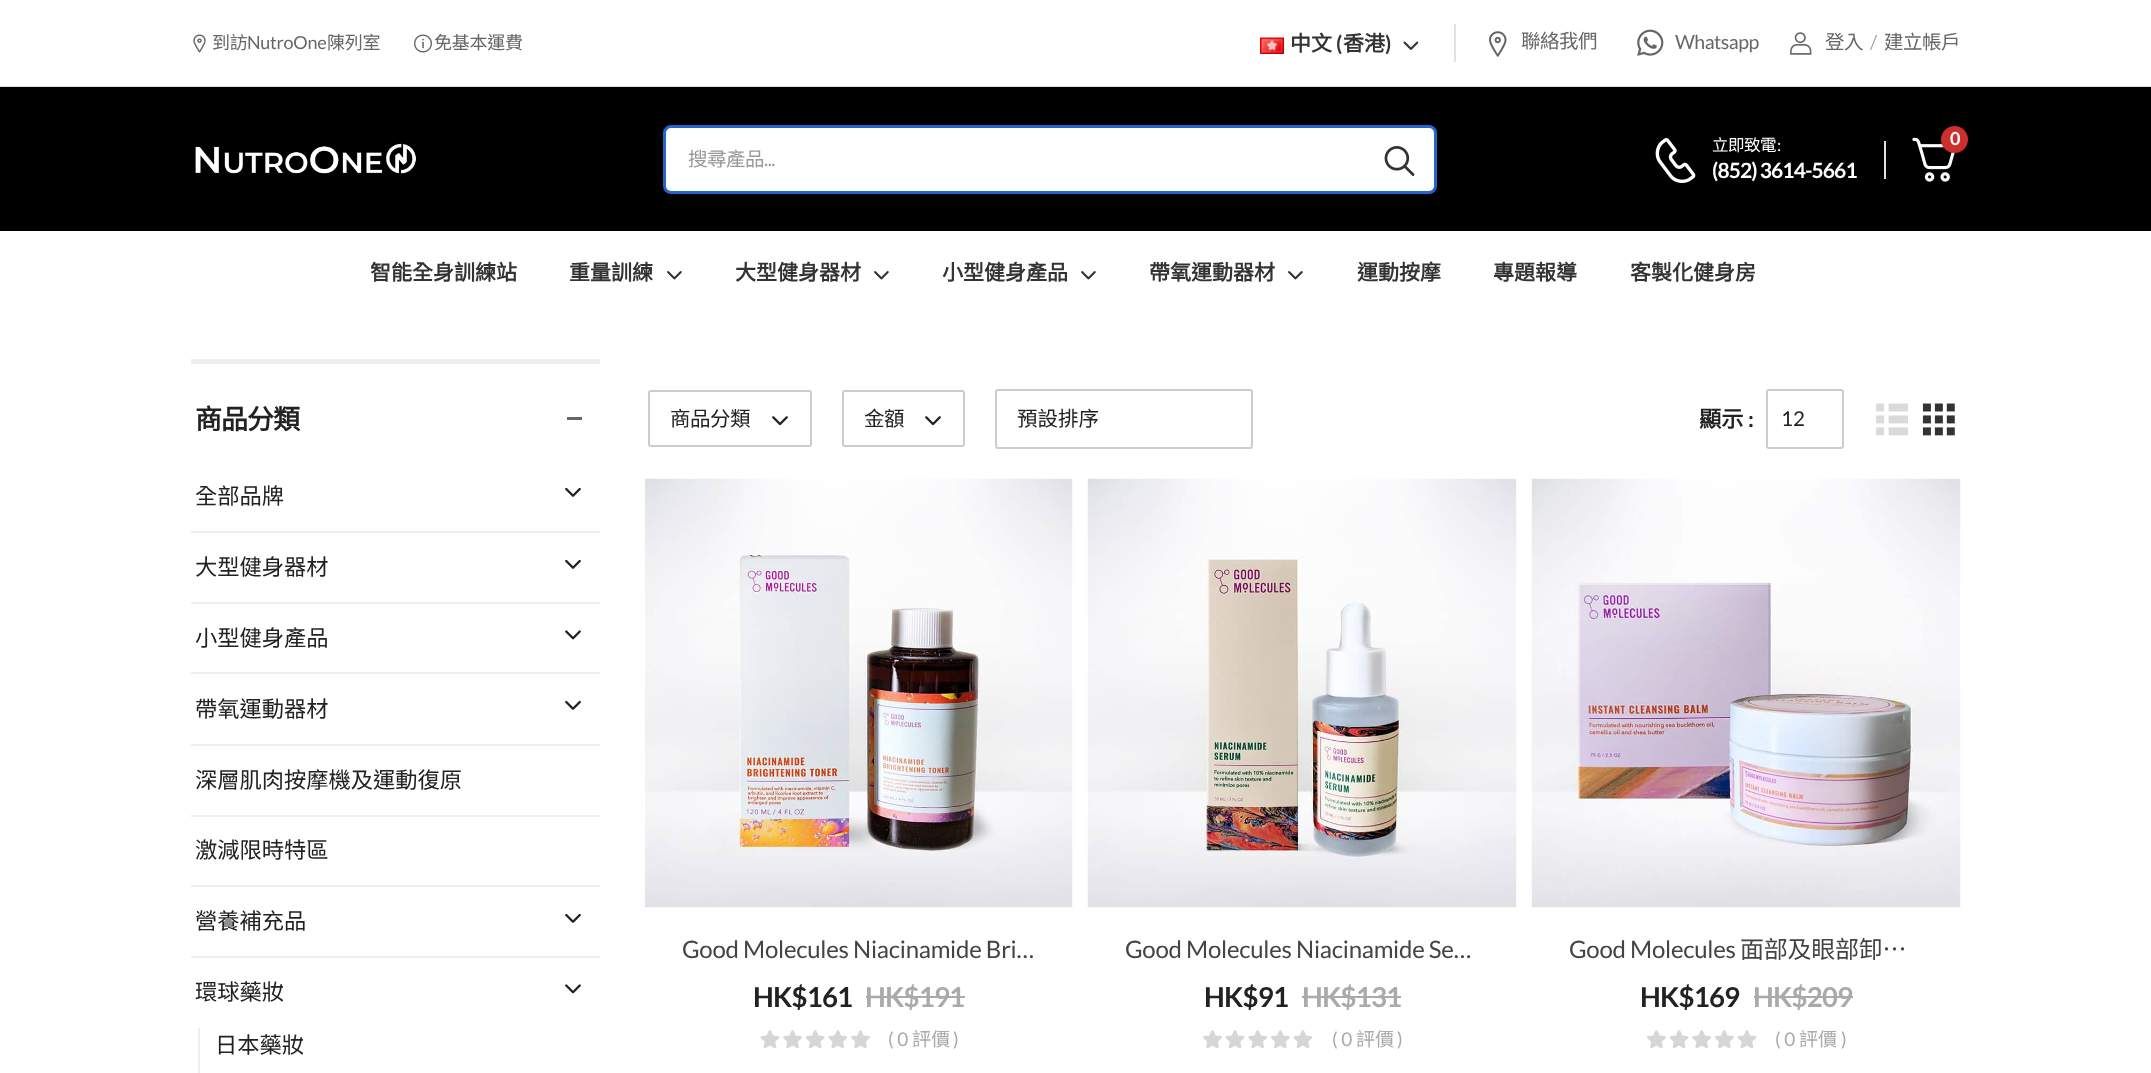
async function draw(canvas) {
  canvas.width = 2151;
  canvas.height = 1073;
  const ctx = canvas.getContext('2d');
  ctx.miterLimit = 4;
  ctx.fontKerning = 'normal';
  function label(s, x, y, font, color) {
    ctx.font = font;
    ctx.fillStyle = color;
    ctx.fillText(s, x, y);
  }
  function rect(x, y, w, h, color) {
    ctx.fillStyle = color;
    ctx.fillRect(x, y, w, h);
  }
  async function image(src, x, y, w, h) {
    const img = new Image();
    img.src = src;
    await img.decode();
    ctx.drawImage(img, x, y, w, h);
  }

  rect(0, 0, 2151, 1073, '#fff');
  rect(0, 86, 2151, 1, '#e1e1e1');
  await image('assets/img1.png', 193, 34, 13, 19);
  ctx.letterSpacing = '-0.25px';
  label('到訪', 212, 49, '18px Noto Sans CJK HK', '#666');
  label('NutroOne', 247, 49, '18px Lato', '#666');
  label('陳列室', 327, 49, '18px Noto Sans CJK HK', '#666');
  await image('assets/img2.png', 414, 34, 18, 19);
  label('免基本運費', 434, 49, '18px Noto Sans CJK HK', '#666');
  await image('assets/img3.png', 1260, 37, 24, 17);
  ctx.letterSpacing = '0px';
  label('中文', 1290, 51, 'bold 21px Noto Sans CJK HK', '#333');
  label('(', 1336, 51, 'bold 21px Lato', '#333');
  label('香港', 1343, 51, 'bold 21px Noto Sans CJK HK', '#333');
  label(')', 1385, 51, 'bold 21px Lato', '#333');
  await image('assets/img4.png', 1403, 41, 16, 9);
  rect(1454, 24, 2, 38, '#e1e1e1');
  await image('assets/img5.png', 1489, 31, 18, 26);
  ctx.letterSpacing = '-0.5px';
  label('聯絡我們', 1521, 48, '19.5px Noto Sans CJK HK', '#666');
  await image('assets/img6.png', 1637, 29, 27, 27);
  label('Whatsapp', 1675, 49, '19.5px Lato', '#666');
  await image('assets/img7.png', 1790, 32, 22, 23);
  label('登入', 1825, 49, '19.5px Noto Sans CJK HK', '#666');
  label('/', 1870, 49, '19.5px Lato', '#aaa');
  label('建立帳戶', 1884, 49, '19.5px Noto Sans CJK HK', '#666');
  rect(0, 87, 2151, 144, '#000');
  await image('assets/img8.png', 195, 143, 221, 31);
  ctx.fillStyle = '#fff';
  ctx.beginPath();
  ctx.roundRect(664.5, 126.5, 771, 66, 6.5);
  ctx.fill();
  ctx.strokeStyle = '#26c';
  ctx.lineWidth = 3;
  ctx.stroke();
  label('搜尋產品', 688, 166, '19.5px Noto Sans CJK HK', '#999');
  label('...', 764, 166, '19.5px Lato', '#999');
  await image('assets/img9.png', 1384, 146, 31, 30);
  await image('assets/img10.png', 1655, 138, 41, 45);
  label('立即致電', 1712, 151, '16.5px Noto Sans CJK HK', '#fff');
  label(':', 1777, 151, '16.5px Lato', '#fff');
  ctx.letterSpacing = '-0.9px';
  label('(852) 3614-5661', 1712, 178, 'bold 21px Lato', '#fff');
  rect(1884, 141, 2, 38, '#e1e1e1');
  await image('assets/img11.png', 1912, 137, 43, 45);
  ctx.fillStyle = '#cf2e2e';
  ctx.beginPath();
  ctx.arc(1954.5, 139.5, 13.5, 0, 2 * Math.PI);
  ctx.fill();
  ctx.letterSpacing = '-0.5px';
  label('0', 1950, 145, 'bold 18px Lato', '#fff');
  ctx.letterSpacing = '0px';
  label('智能全身訓練站', 370, 280, 'bold 21px Noto Sans CJK HK', '#333');
  label('重量訓練', 569, 280, 'bold 21px Noto Sans CJK HK', '#333');
  await image('assets/img12.png', 667, 271, 15, 9);
  label('大型健身器材', 735, 280, 'bold 21px Noto Sans CJK HK', '#333');
  await image('assets/img12.png', 874, 271, 15, 9);
  label('小型健身產品', 942, 280, 'bold 21px Noto Sans CJK HK', '#333');
  await image('assets/img12.png', 1081, 271, 15, 9);
  label('帶氧運動器材', 1149, 280, 'bold 21px Noto Sans CJK HK', '#333');
  await image('assets/img12.png', 1288, 271, 15, 9);
  label('運動按摩', 1357, 280, 'bold 21px Noto Sans CJK HK', '#333');
  label('專題報導', 1493, 280, 'bold 21px Noto Sans CJK HK', '#333');
  label('客製化健身房', 1630, 280, 'bold 21px Noto Sans CJK HK', '#333');
  rect(191, 359, 409, 5, '#eee');
  ctx.letterSpacing = '-1px';
  label('商品分類', 195, 429, 'bold 27px Noto Sans CJK HK', '#222');
  rect(567, 417, 15, 3, '#666');
  rect(191, 531, 409, 2, '#eee');
  ctx.letterSpacing = '0px';
  label('全部品牌', 195, 504, '22.25px Noto Sans CJK HK', '#222');
  await image('assets/img13.png', 565, 487, 16, 10);
  rect(191, 602, 409, 2, '#eee');
  label('大型健身器材', 195, 575, '22.25px Noto Sans CJK HK', '#222');
  await image('assets/img13.png', 565, 559, 16, 10);
  rect(191, 672, 409, 2, '#eee');
  label('小型健身產品', 195, 646, '22.25px Noto Sans CJK HK', '#222');
  await image('assets/img14.png', 565, 630, 16, 10);
  rect(191, 744, 409, 2, '#eee');
  label('帶氧運動器材', 195, 717, '22.25px Noto Sans CJK HK', '#222');
  await image('assets/img13.png', 565, 700, 16, 10);
  rect(191, 815, 409, 2, '#eee');
  label('深層肌肉按摩機及運動復原', 195, 788, '22.25px Noto Sans CJK HK', '#222');
  rect(191, 885, 409, 2, '#eee');
  label('激減限時特區', 195, 858, '22.25px Noto Sans CJK HK', '#222');
  rect(191, 956, 409, 2, '#eee');
  label('營養補充品', 195, 929, '22.25px Noto Sans CJK HK', '#222');
  await image('assets/img13.png', 565, 913, 16, 10);
  label('環球藥妝', 195, 1000, '22.25px Noto Sans CJK HK', '#222');
  await image('assets/img14.png', 565, 984, 16, 10);
  rect(198, 1028, 2, 45, '#eee');
  label('日本藥妝', 215, 1053, '22.25px Noto Sans CJK HK', '#222');
  await image('assets/img15.png', 772, 416, 16, 10);
  ctx.beginPath();
  ctx.roundRect(649, 391, 162, 55, 2);
  ctx.strokeStyle = '#ccc';
  ctx.lineWidth = 2;
  ctx.stroke();
  ctx.letterSpacing = '-0.5px';
  label('商品分類', 670, 426, '20.5px Noto Sans CJK HK', '#222');
  await image('assets/img15.png', 925, 416, 16, 10);
  ctx.beginPath();
  ctx.roundRect(843, 391, 121, 55, 2);
  ctx.stroke();
  label('金額', 864, 426, '20.5px Noto Sans CJK HK', '#222');
  ctx.beginPath();
  ctx.roundRect(996, 390, 256, 58, 2);
  ctx.stroke();
  ctx.letterSpacing = '0px';
  label('預設排序', 1017, 426, '20.5px Noto Sans CJK HK', '#222');
  label('顯示', 1699, 427, 'bold 22.25px Noto Sans CJK HK', '#222');
  label(':', 1748, 427, 'bold 22.25px Lato', '#222');
  ctx.beginPath();
  ctx.roundRect(1767, 390, 76, 58, 2);
  ctx.stroke();
  label('12', 1781, 426, '20.5px Lato', '#222');
  await image('assets/img16.png', 1876, 403, 32, 33);
  await image('assets/img17.png', 1922, 403, 33, 33);
  await image('assets/img18.png', 645, 478, 428, 430);
  ctx.letterSpacing = '-0.25px';
  label('Good Molecules Niacinamide Bri…', 682, 958, '24px Lato', '#444');
  ctx.letterSpacing = '-0.75px';
  label('HK$161', 753, 1007, 'bold 27.5px Lato', '#222');
  label('HK$191', 865, 1007, 'bold 27.5px Lato', '#aaa');
  rect(866, 996, 99, 2, '#aaa');
  await image('assets/img19.png', 760, 1030, 110, 19);
  ctx.letterSpacing = '0px';
  label('( 0', 888, 1046, '19px Lato', '#aaa');
  label('評價', 912, 1046, '19px Noto Sans CJK HK', '#aaa');
  label(')', 953, 1046, '19px Lato', '#aaa');
  await image('assets/img20.png', 1087, 478, 430, 430);
  ctx.letterSpacing = '-0.25px';
  label('Good Molecules Niacinamide Se…', 1125, 958, '24px Lato', '#444');
  ctx.letterSpacing = '-0.75px';
  label('HK$91', 1204, 1007, 'bold 27.5px Lato', '#222');
  label('HK$131', 1302, 1007, 'bold 27.5px Lato', '#aaa');
  rect(1302, 996, 99, 2, '#aaa');
  await image('assets/img21.png', 1203, 1030, 110, 19);
  ctx.letterSpacing = '0px';
  label('( 0', 1332, 1046, '19px Lato', '#aaa');
  label('評價', 1356, 1046, '19px Noto Sans CJK HK', '#aaa');
  label(')', 1397, 1046, '19px Lato', '#aaa');
  await image('assets/img22.png', 1531, 478, 430, 430);
  ctx.letterSpacing = '-0.25px';
  label('Good Molecules', 1569, 958, '24px Lato', '#444');
  label('面部及眼部卸…', 1740, 958, '24px Noto Sans CJK HK', '#444');
  ctx.letterSpacing = '-0.75px';
  label('HK$169', 1640, 1007, 'bold 27.5px Lato', '#222');
  label('HK$209', 1753, 1007, 'bold 27.5px Lato', '#aaa');
  rect(1754, 996, 99, 2, '#aaa');
  await image('assets/img21.png', 1647, 1030, 110, 19);
  ctx.letterSpacing = '0px';
  label('( 0', 1775, 1046, '19px Lato', '#aaa');
  label('評價', 1799, 1046, '19px Noto Sans CJK HK', '#aaa');
  label(')', 1841, 1046, '19px Lato', '#aaa');
}

draw(document.querySelector('canvas'));
